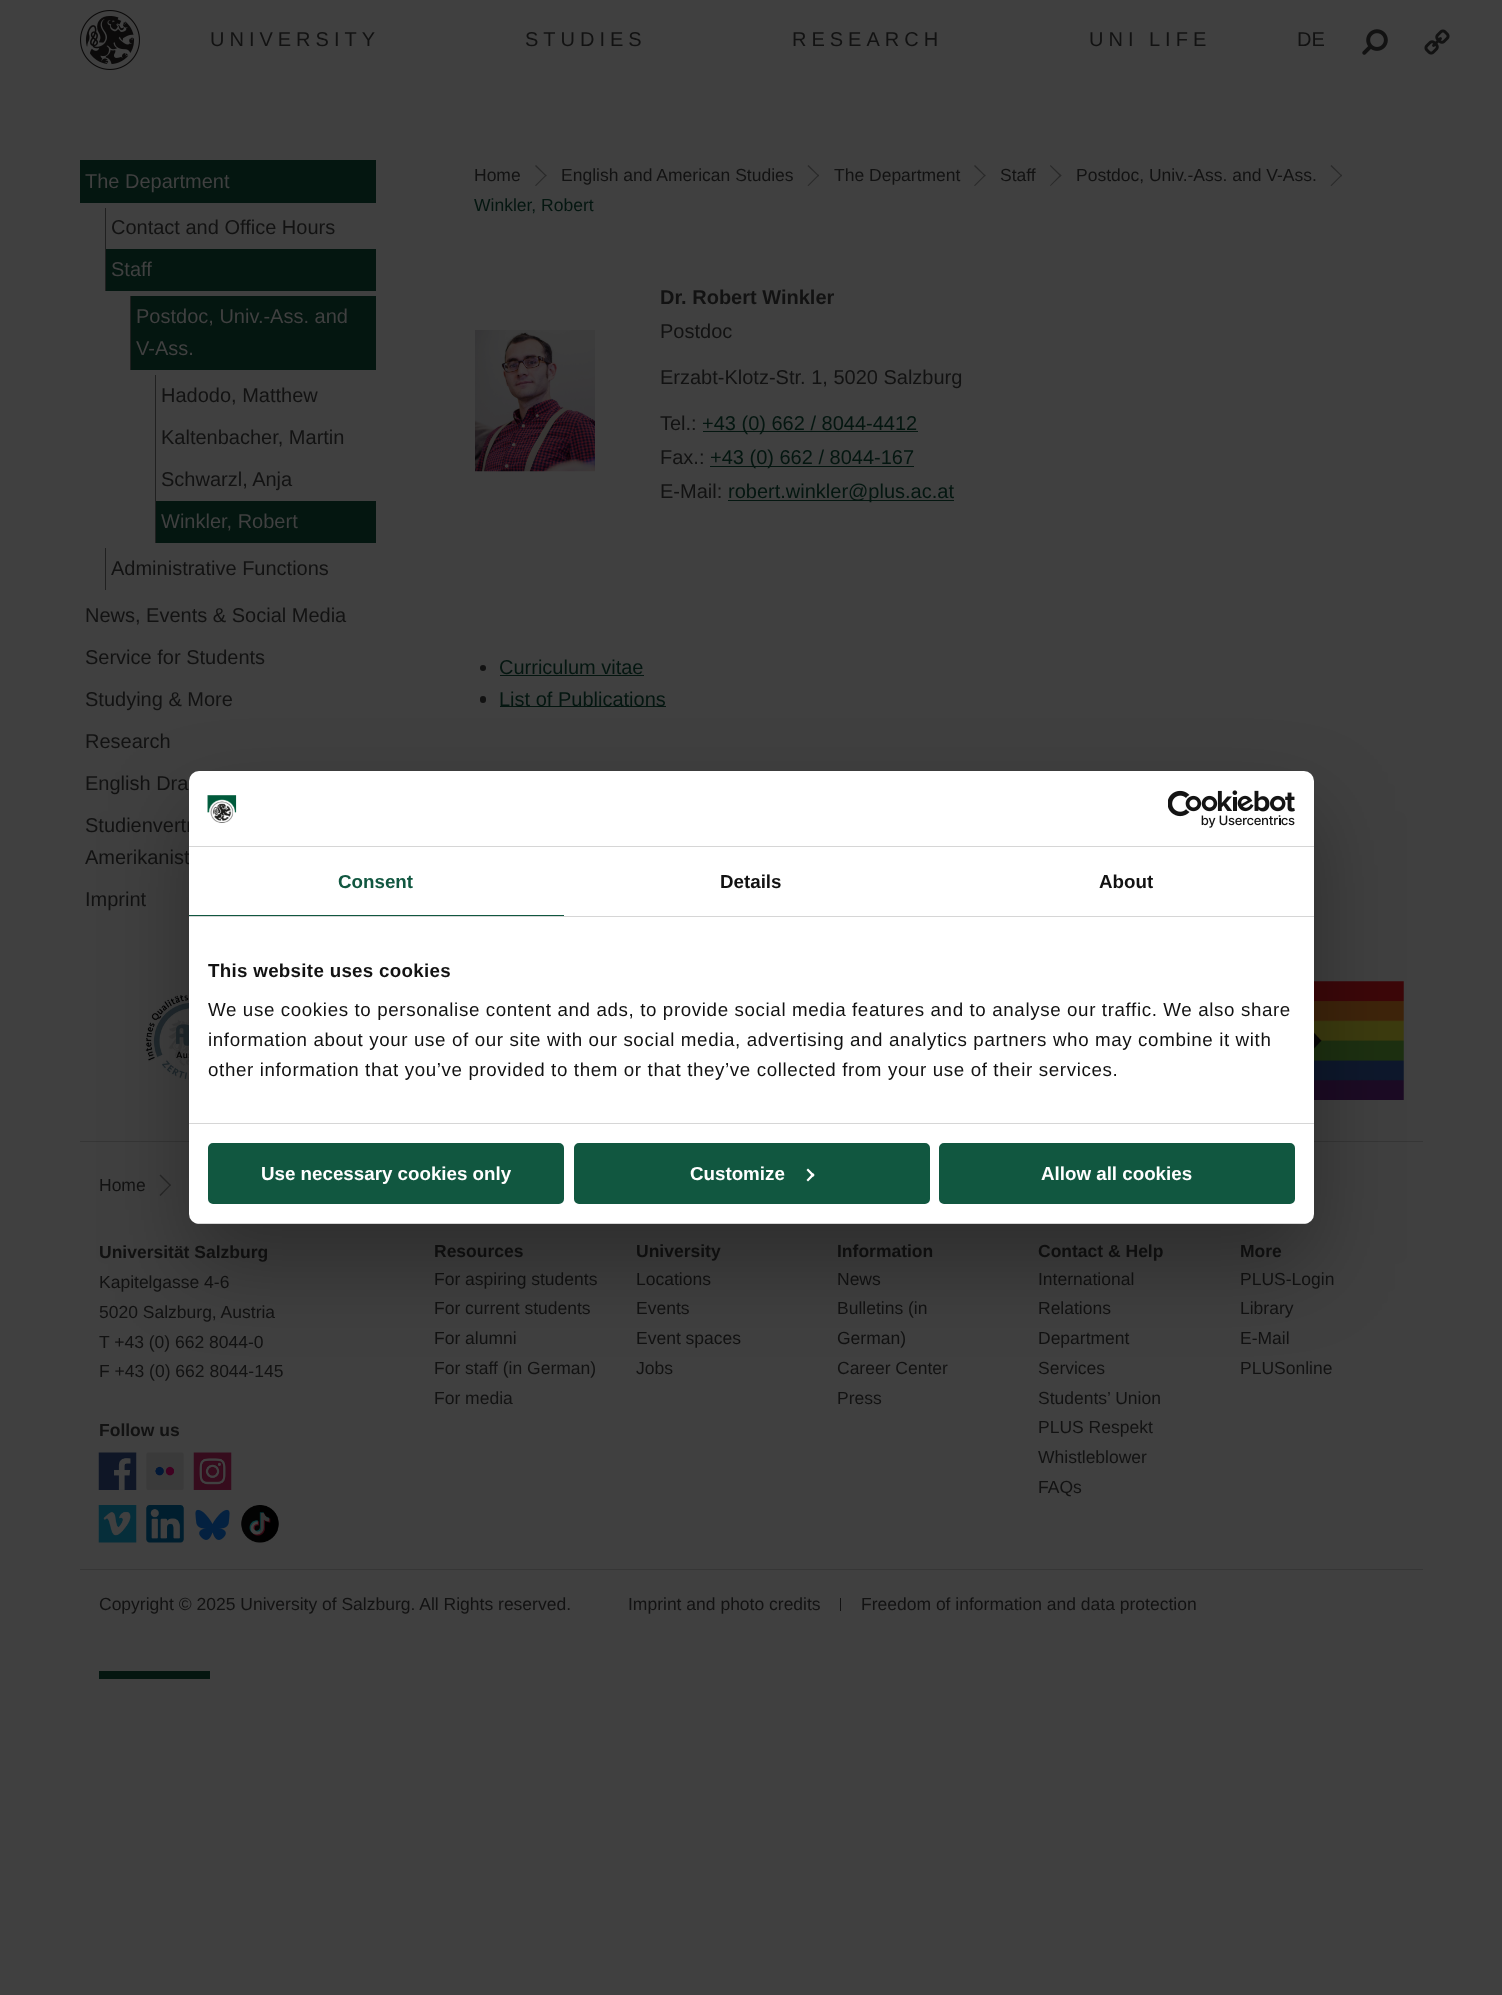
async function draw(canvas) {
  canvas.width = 1502;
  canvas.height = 1995;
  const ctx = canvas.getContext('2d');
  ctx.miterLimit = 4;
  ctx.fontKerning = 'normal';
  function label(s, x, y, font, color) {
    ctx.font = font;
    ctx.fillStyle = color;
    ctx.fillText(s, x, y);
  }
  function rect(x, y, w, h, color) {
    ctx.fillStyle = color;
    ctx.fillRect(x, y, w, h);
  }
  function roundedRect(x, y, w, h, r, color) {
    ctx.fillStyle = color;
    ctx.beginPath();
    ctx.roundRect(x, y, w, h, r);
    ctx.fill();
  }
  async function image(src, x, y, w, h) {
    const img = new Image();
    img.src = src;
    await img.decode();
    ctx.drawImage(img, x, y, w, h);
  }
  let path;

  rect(0, 0, 1502, 1995, '#404040');
  await image('assets/img1.png', 80, 10, 60, 60);
  ctx.letterSpacing = '5px';
  label('UNIVERSITY', 210, 46, '20px Liberation Sans', '#121212');
  label('STUDIES', 525, 46, '20px Liberation Sans', '#121212');
  label('RESEARCH', 792, 46, '20px Liberation Sans', '#121212');
  label('UNI LIFE', 1089, 46, '20px Liberation Sans', '#121212');
  ctx.letterSpacing = '0px';
  label('DE', 1297, 46, '20px Liberation Sans', '#121212');
  await image('assets/img2.png', 1362, 29, 26, 26);
  await image('assets/img3.png', 1424, 29, 26, 26);
  rect(80, 160, 296, 43, '#041610');
  label('The Department', 85, 188, '20px Liberation Sans', '#404040');
  rect(105, 208, 1, 83, '#202020');
  label('Contact and Office Hours', 111, 234, '20px Liberation Sans', '#121212');
  rect(106, 249, 270, 42, '#041610');
  label('Staff', 111, 276, '20px Liberation Sans', '#404040');
  rect(131, 296, 245, 74, '#041610');
  rect(130, 296, 1, 74, '#202020');
  label('Postdoc, Univ.-Ass. and', 136, 323, '20px Liberation Sans', '#404040');
  label('V-Ass.', 136, 355, '20px Liberation Sans', '#404040');
  rect(155, 375, 1, 168, '#202020');
  label('Hadodo, Matthew', 161, 402, '20px Liberation Sans', '#121212');
  label('Kaltenbacher, Martin', 161, 444, '20px Liberation Sans', '#121212');
  label('Schwarzl, Anja', 161, 486, '20px Liberation Sans', '#121212');
  rect(156, 501, 220, 42, '#041610');
  label('Winkler, Robert', 161, 528, '20px Liberation Sans', '#404040');
  rect(105, 548, 1, 42, '#202020');
  label('Administrative Functions', 111, 575, '20px Liberation Sans', '#121212');
  label('News, Events & Social Media', 85, 622, '20px Liberation Sans', '#121212');
  label('Service for Students', 85, 664, '20px Liberation Sans', '#121212');
  label('Studying & More', 85, 706, '20px Liberation Sans', '#121212');
  label('Research', 85, 748, '20px Liberation Sans', '#121212');
  label('English Dra', 85, 790, '20px Liberation Sans', '#121212');
  label('Studienvertr', 85, 832, '20px Liberation Sans', '#121212');
  label('Amerikanist', 85, 864, '20px Liberation Sans', '#121212');
  label('Imprint', 85, 906, '20px Liberation Sans', '#121212');
  label('Home', 474, 181, '17.5px Liberation Sans', '#121212');
  ctx.fillStyle = '#292929';
  path = new Path2D('M536 165L546.5 175.5L546 176.5L535 166Z');
  ctx.fill(path);
  path = new Path2D('M546 174.5L546.5 175.5L536 186L535 185.5Z');
  ctx.fill(path);
  label('English and American Studies', 561, 181, '17.5px Liberation Sans', '#121212');
  ctx.fillStyle = '#292929';
  path = new Path2D('M808.5 165L819 175.5L818.5 176.5L807.5 166Z');
  ctx.fill(path);
  path = new Path2D('M818.5 174.5L819 175.5L808.5 186L807.5 185.5Z');
  ctx.fill(path);
  label('The Department', 834, 181, '17.5px Liberation Sans', '#121212');
  ctx.fillStyle = '#292929';
  path = new Path2D('M975 165L985.5 175.5L985 176.5L974 166Z');
  ctx.fill(path);
  path = new Path2D('M985 174.5L985.5 175.5L975 186L974 185.5Z');
  ctx.fill(path);
  label('Staff', 1000, 181, '17.5px Liberation Sans', '#121212');
  ctx.fillStyle = '#292929';
  path = new Path2D('M1050.5 165L1061.5 175.5L1060.5 176.5L1050 166Z');
  ctx.fill(path);
  path = new Path2D('M1060.5 174.5L1061.5 175.5L1050.5 186L1050 185.5Z');
  ctx.fill(path);
  label('Postdoc, Univ.-Ass. and V-Ass.', 1076, 181, '17.5px Liberation Sans', '#121212');
  ctx.fillStyle = '#292929';
  path = new Path2D('M1331.5 165L1342 175.5L1341.5 176.5L1330.5 166Z');
  ctx.fill(path);
  path = new Path2D('M1341.5 174.5L1342 175.5L1331.5 186L1330.5 185.5Z');
  ctx.fill(path);
  label('Winkler, Robert', 474, 211, '17.5px Liberation Sans', '#041610');
  await image('assets/img4.png', 475, 330, 120, 142);
  label('Dr. Robert Winkler', 660, 304, 'bold 20px Liberation Sans', '#121212');
  label('Postdoc', 660, 338, '20px Liberation Sans', '#121212');
  label('Erzabt-Klotz-Str. 1, 5020 Salzburg', 660, 384, '20px Liberation Sans', '#121212');
  label('Tel.:', 660, 430, '20px Liberation Sans', '#121212');
  rect(703, 431, 215, 1, '#041610');
  label('+43 (0) 662 / 8044-4412', 702, 430, '20px Liberation Sans', '#041610');
  label('Fax.:', 660, 464, '20px Liberation Sans', '#121212');
  rect(710, 466, 204, 1, '#041610');
  label('+43 (0) 662 / 8044-167', 710, 464, '20px Liberation Sans', '#041610');
  label('E-Mail:', 660, 498, '20px Liberation Sans', '#121212');
  rect(728, 500, 226, 1, '#041610');
  label('robert.winkler@plus.ac.at', 728, 498, '20px Liberation Sans', '#041610');
  ctx.fillStyle = '#121212';
  ctx.beginPath();
  ctx.arc(483, 668, 3, 0, 2 * Math.PI);
  ctx.fill();
  label('Curriculum vitae', 499, 674, '20px Liberation Sans', '#041610');
  rect(500, 675, 144, 1, '#041610');
  roundedRect(480, 696, 6, 7, 3, '#121212');
  rect(500, 706, 166, 1, '#041610');
  label('List of Publications', 499, 706, '20px Liberation Sans', '#041610');
  await image('assets/img5.png', 133, 981, 56, 120);
  await image('assets/img6.png', 1314, 981, 90, 119);
  rect(80, 1141, 1343, 1, '#363636');
  label('Home', 99, 1191, '17.5px Liberation Sans', '#121212');
  ctx.fillStyle = '#282828';
  path = new Path2D('M160.5 1174.5L171 1185L170 1186L159.5 1175.5Z');
  ctx.fill(path);
  path = new Path2D('M170 1184.5L171 1185L160.5 1196L159.5 1195Z');
  ctx.fill(path);
  label('Universität Salzburg', 99, 1258, 'bold 17.5px Liberation Sans', '#121212');
  label('Kapitelgasse 4-6', 99, 1288, '17.5px Liberation Sans', '#121212');
  label('5020 Salzburg, Austria', 99, 1318, '17.5px Liberation Sans', '#121212');
  label('T +43 (0) 662 8044-0', 99, 1348, '17.5px Liberation Sans', '#121212');
  label('F +43 (0) 662 8044-145', 99, 1377, '17.5px Liberation Sans', '#121212');
  label('Follow us', 99, 1436, 'bold 17.5px Liberation Sans', '#121212');
  await image('assets/img7.png', 98, 1452, 39, 38);
  await image('assets/img8.png', 146, 1452, 38, 38);
  await image('assets/img9.png', 193, 1452, 39, 38);
  await image('assets/img10.png', 98, 1505, 39, 38);
  await image('assets/img11.png', 146, 1505, 38, 38);
  await image('assets/img12.png', 195, 1509, 35, 31);
  await image('assets/img13.png', 241, 1505, 38, 38);
  label('Resources', 434, 1257, 'bold 17.5px Liberation Sans', '#121212');
  label('For aspiring students', 434, 1285, '17.5px Liberation Sans', '#121212');
  label('For current students', 434, 1314, '17.5px Liberation Sans', '#121212');
  label('For alumni', 434, 1344, '17.5px Liberation Sans', '#121212');
  label('For staff (in German)', 434, 1374, '17.5px Liberation Sans', '#121212');
  label('For media', 434, 1404, '17.5px Liberation Sans', '#121212');
  label('University', 636, 1257, 'bold 17.5px Liberation Sans', '#121212');
  label('Locations', 636, 1285, '17.5px Liberation Sans', '#121212');
  label('Events', 636, 1314, '17.5px Liberation Sans', '#121212');
  label('Event spaces', 636, 1344, '17.5px Liberation Sans', '#121212');
  label('Jobs', 636, 1374, '17.5px Liberation Sans', '#121212');
  label('Information', 837, 1257, 'bold 17.5px Liberation Sans', '#121212');
  label('News', 837, 1285, '17.5px Liberation Sans', '#121212');
  label('Bulletins (in', 837, 1314, '17.5px Liberation Sans', '#121212');
  label('German)', 837, 1344, '17.5px Liberation Sans', '#121212');
  label('Career Center', 837, 1374, '17.5px Liberation Sans', '#121212');
  label('Press', 837, 1404, '17.5px Liberation Sans', '#121212');
  label('Contact & Help', 1038, 1257, 'bold 17.5px Liberation Sans', '#121212');
  label('International', 1038, 1285, '17.5px Liberation Sans', '#121212');
  label('Relations', 1038, 1314, '17.5px Liberation Sans', '#121212');
  label('Department', 1038, 1344, '17.5px Liberation Sans', '#121212');
  label('Services', 1038, 1374, '17.5px Liberation Sans', '#121212');
  label('Students’ Union', 1038, 1404, '17.5px Liberation Sans', '#121212');
  label('PLUS Respekt', 1038, 1433, '17.5px Liberation Sans', '#121212');
  label('Whistleblower', 1038, 1463, '17.5px Liberation Sans', '#121212');
  label('FAQs', 1038, 1493, '17.5px Liberation Sans', '#121212');
  label('More', 1240, 1257, 'bold 17.5px Liberation Sans', '#121212');
  label('PLUS-Login', 1240, 1285, '17.5px Liberation Sans', '#121212');
  label('Library', 1240, 1314, '17.5px Liberation Sans', '#121212');
  label('E-Mail', 1240, 1344, '17.5px Liberation Sans', '#121212');
  label('PLUSonline', 1240, 1374, '17.5px Liberation Sans', '#121212');
  rect(80, 1569, 1343, 1, '#363636');
  label('Copyright © 2025 University of Salzburg. All Rights reserved.', 99, 1610, '17.5px Liberation Sans', '#121212');
  label('Imprint and photo credits', 628, 1610, '17.5px Liberation Sans', '#121212');
  rect(840, 1598, 1, 13, '#121212');
  label('Freedom of information and data protection', 861, 1610, '17.5px Liberation Sans', '#121212');
  rect(99, 1671, 111, 8, '#041610');
  ctx.fillStyle = '#0000004d';
  ctx.filter = 'blur(42.5px)';
  ctx.beginPath();
  ctx.roundRect(189, 811, 1125, 453, 10);
  ctx.fill();
  ctx.filter = 'none';
  roundedRect(189, 771, 1125, 453, 10, '#fff');
  rect(189, 846, 1125, 1, '#d6d6d6');
  await image('assets/img14.png', 207, 795, 30, 28);
  await image('assets/img15.png', 1168, 790, 127, 38);
  rect(189, 916, 1125, 1, '#d6d6d6');
  rect(189, 915, 375, 1, '#115740');
  label('Consent', 338, 888, 'bold 18.75px Liberation Sans', '#115740');
  label('Details', 720, 888, 'bold 18.75px Liberation Sans', '#121212');
  label('About', 1099, 888, 'bold 18.75px Liberation Sans', '#121212');
  rect(189, 1123, 1125, 1, '#d6d6d6');
  ctx.letterSpacing = '0.3px';
  label('This website uses cookies', 208, 977, 'bold 18.75px Liberation Sans', '#121212');
  ctx.letterSpacing = '0.62px';
  label('We use cookies to personalise content and ads, to provide social media features and to analyse our traffic. We also share', 208, 1016, '18.75px Liberation Sans', '#121212');
  label('information about your use of our site with our social media, advertising and analytics partners who may combine it with', 208, 1046, '18.75px Liberation Sans', '#121212');
  label('other information that you’ve provided to them or that they’ve collected from your use of their services.', 208, 1076, '18.75px Liberation Sans', '#121212');
  ctx.save();
  ctx.beginPath();
  ctx.roundRect(189, 771, 1125, 453, 10);
  ctx.clip();
  rect(189, 1223, 1125, 1, '#d6d6d6');
  ctx.restore();
  ctx.fillStyle = '#115740';
  ctx.beginPath();
  ctx.roundRect(209.5, 1144.5, 353, 58, 3.5);
  ctx.fill();
  ctx.strokeStyle = '#115740';
  ctx.lineWidth = 3;
  ctx.stroke();
  ctx.letterSpacing = '0px';
  label('Use necessary cookies only', 261, 1180, 'bold 18.75px Liberation Sans', '#fff');
  ctx.fillStyle = '#115740';
  ctx.beginPath();
  ctx.roundRect(575.5, 1144.5, 353, 58, 3.5);
  ctx.fill();
  ctx.stroke();
  label('Customize', 690, 1180, 'bold 18.75px Liberation Sans', '#fff');
  path = new Path2D('M808 1168.5L814.5 1175L813 1177L806.5 1170Z');
  ctx.fill(path);
  path = new Path2D('M813 1173L814.5 1175L808 1181.5L806.5 1180Z');
  ctx.fill(path);
  ctx.fillStyle = '#115740';
  ctx.beginPath();
  ctx.roundRect(940.5, 1144.5, 353, 58, 3.5);
  ctx.fill();
  ctx.stroke();
  label('Allow all cookies', 1041, 1180, 'bold 18.75px Liberation Sans', '#fff');
}

draw(document.querySelector('canvas'));
